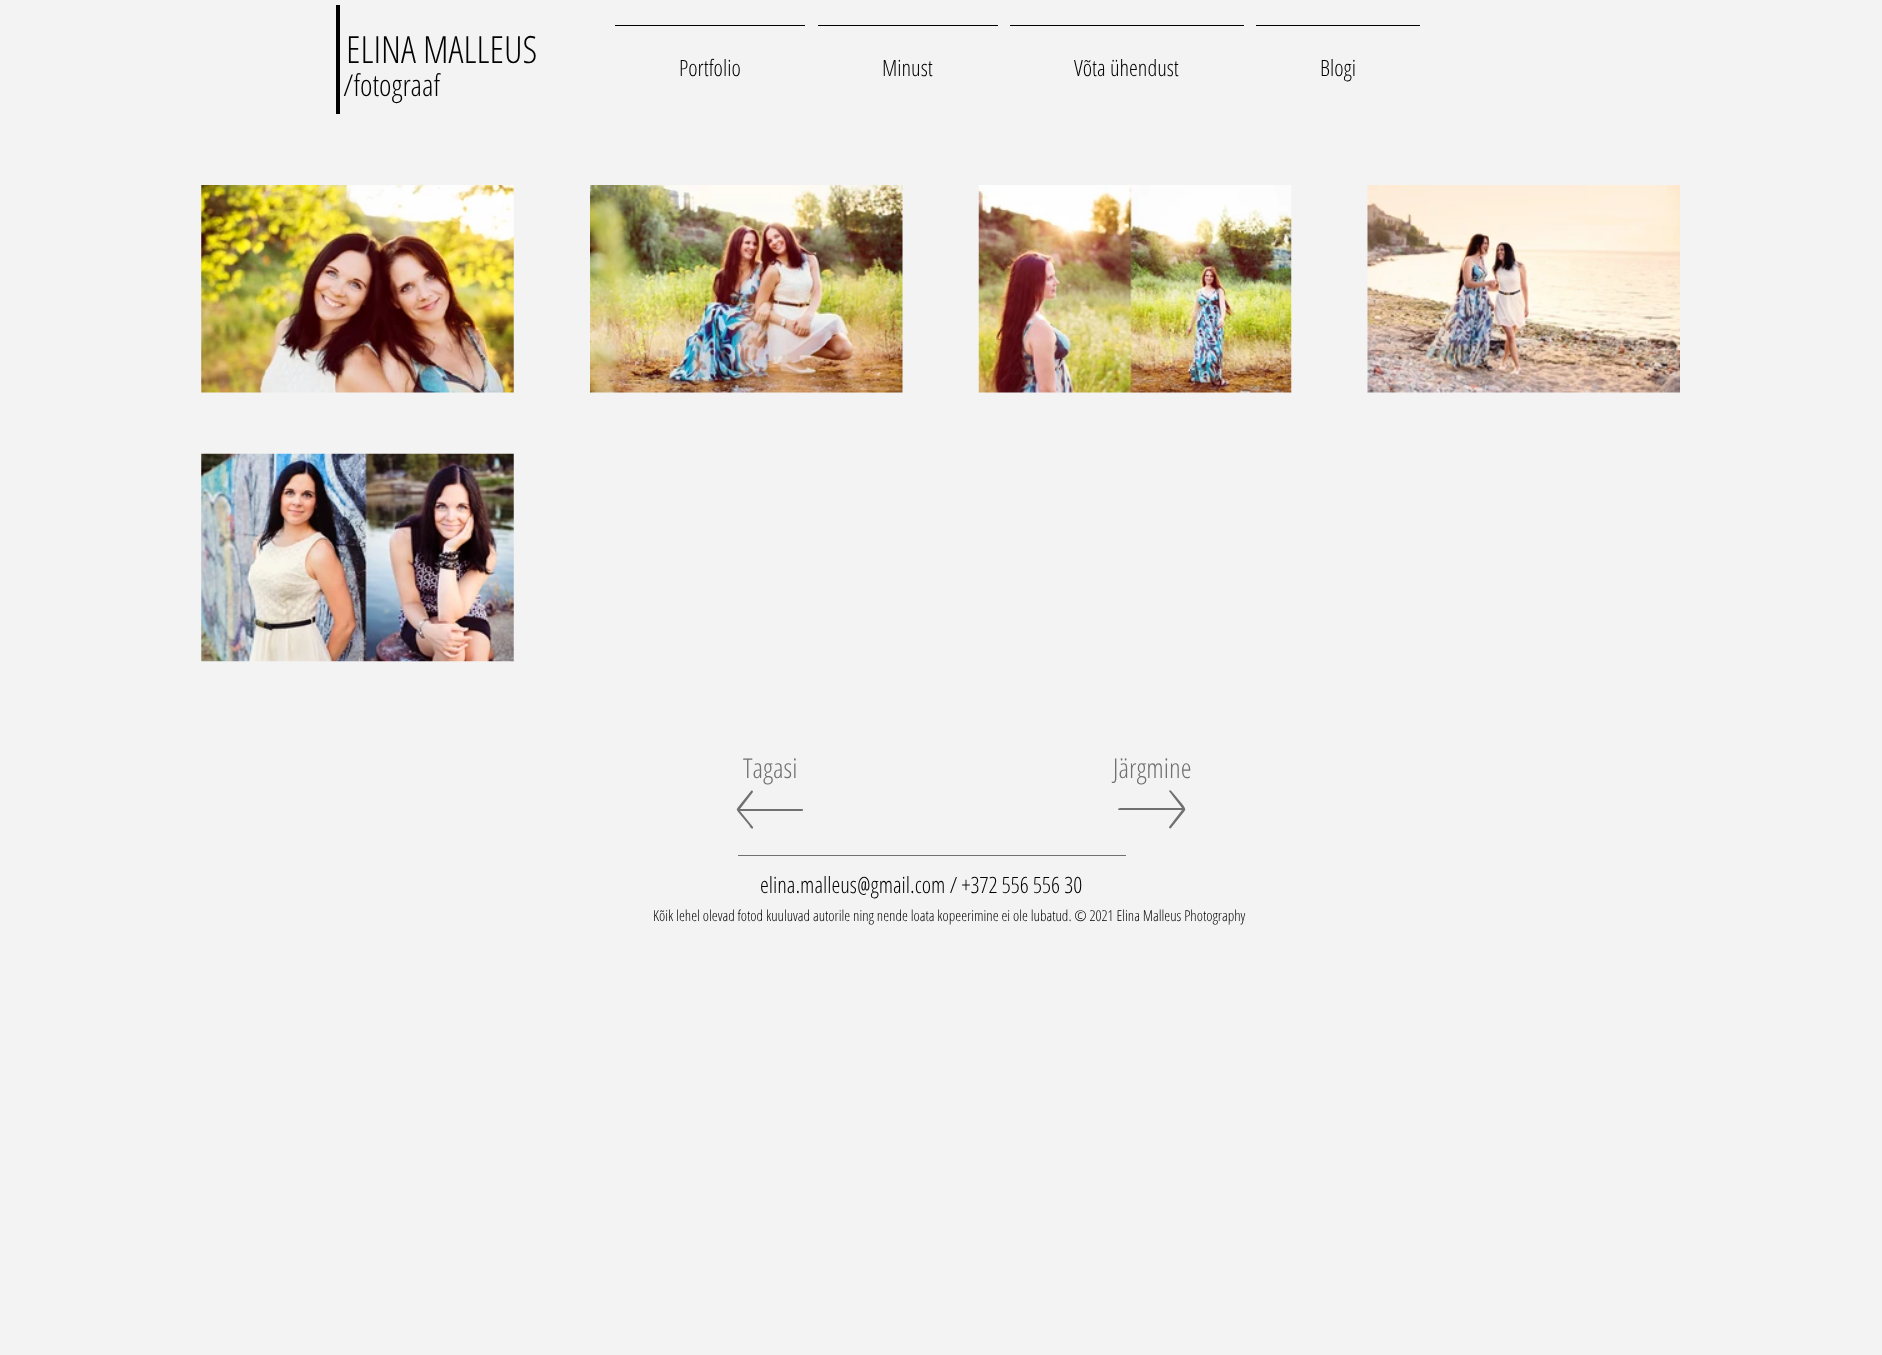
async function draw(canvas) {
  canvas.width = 1882;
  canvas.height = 1355;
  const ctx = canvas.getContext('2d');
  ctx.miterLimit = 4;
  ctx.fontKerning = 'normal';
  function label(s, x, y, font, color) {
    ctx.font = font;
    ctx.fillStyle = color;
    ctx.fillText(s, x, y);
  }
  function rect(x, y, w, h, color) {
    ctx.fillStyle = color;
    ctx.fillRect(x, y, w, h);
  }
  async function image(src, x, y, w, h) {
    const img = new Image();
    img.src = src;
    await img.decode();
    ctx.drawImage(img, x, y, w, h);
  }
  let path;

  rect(0, 0, 1882, 1355, '#f3f3f3');
  rect(336, 5, 4, 109, '#000');
  label('ELINA MALLEUS', 346, 63, '300 37.5px Open Sans Condensed', '#000');
  rect(615, 25, 190, 1, '#000');
  label('Portfolio', 679, 76, '300 22.5px Open Sans Condensed', '#000');
  rect(818, 25, 180, 1, '#000');
  label('Minust', 882, 76, '300 22.5px Open Sans Condensed', '#000');
  rect(1010, 25, 234, 1, '#000');
  label('Võta ühendust', 1074, 76, '300 22.5px Open Sans Condensed', '#000');
  rect(1256, 25, 164, 1, '#000');
  label('Blogi', 1320, 76, '300 22.5px Open Sans Condensed', '#000');
  label('/fotograaf', 343, 96, '300 30px Open Sans Condensed', '#000');
  await image('assets/img1.png', 201, 185, 313, 208);
  await image('assets/img2.png', 590, 185, 313, 208);
  await image('assets/img3.png', 978, 185, 314, 208);
  await image('assets/img4.png', 1367, 185, 313, 208);
  await image('assets/img5.png', 201, 453, 313, 209);
  label('Tagasi', 743, 778, '300 27.5px Open Sans Condensed', '#717070');
  label('Järgmine', 1113, 778, '300 27.5px Open Sans Condensed', '#717070');
  path = new Path2D('M751 791L739 806C736 810 736 809 739 813L749 825C750 827 752 830 753 828V827L740 811H802C803 811 803 810 803 810C803 809 803 809 802 809H740L753 792C753 791 752 790 751 791Z');
  ctx.fill(path);
  path = new Path2D('M1171 828L1183 813C1186 809 1186 810 1183 805L1173 793C1172 792 1170 789 1169 791L1182 808H1120C1119 808 1118 809 1118 809C1118 810 1119 810 1120 810H1182L1169 827C1169 828 1170 829 1171 828Z');
  ctx.fill(path);
  rect(738, 855, 388, 1, '#717070');
  label('elina.malleus@gmail.com / +372 556 556 30', 760, 893, '300 22.5px Open Sans Condensed', '#000');
  label('Kõik lehel olevad fotod kuuluvad autorile ning nende loata kopeerimine ei ole lubatud. © 2021 Elina Malleus Photography', 653, 921, '300 15px Open Sans Condensed', '#000');
}

draw(document.querySelector('canvas'));
